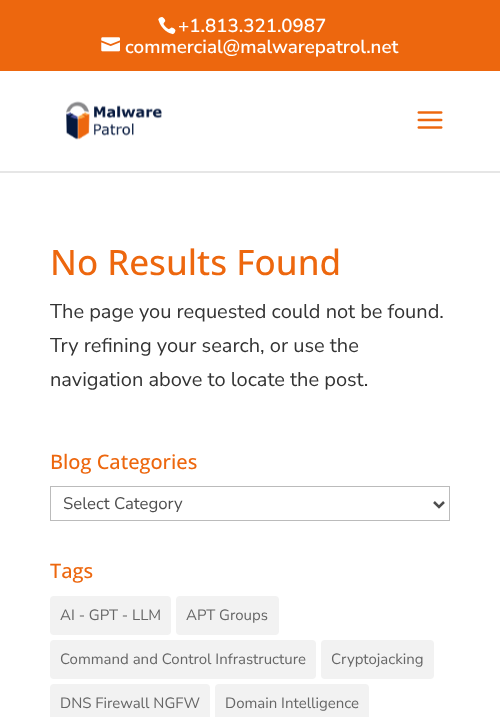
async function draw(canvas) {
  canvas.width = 500;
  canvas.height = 717;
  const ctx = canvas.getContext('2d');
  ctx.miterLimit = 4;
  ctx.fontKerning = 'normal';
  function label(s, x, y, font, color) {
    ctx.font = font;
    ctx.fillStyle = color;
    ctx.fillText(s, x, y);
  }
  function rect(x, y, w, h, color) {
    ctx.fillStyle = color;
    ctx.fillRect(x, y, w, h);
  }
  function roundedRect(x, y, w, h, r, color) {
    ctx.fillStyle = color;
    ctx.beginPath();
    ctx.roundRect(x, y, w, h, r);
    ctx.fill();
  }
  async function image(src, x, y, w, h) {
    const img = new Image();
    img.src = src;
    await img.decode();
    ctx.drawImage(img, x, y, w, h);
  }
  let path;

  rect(0, 0, 500, 717, '#fff');
  rect(0, 0, 500, 71, '#ed670e');
  await image('assets/img1.png', 158, 17, 18, 18);
  label('+1.813.321.0987', 178, 32, '600 18.75px Nunito Sans', '#fff');
  await image('assets/img2.png', 101, 37, 19, 15);
  label('commercial@malwarepatrol.net', 125, 53, '600 18.75px Nunito Sans', '#fff');
  rect(0, 171, 500, 2, '#e6e6e6');
  await image('assets/img3.png', 66, 101, 96, 39);
  await image('assets/img4.png', 417, 111, 26, 18);
  label('No Results Found', 50, 275, '500 35px Open Sans', '#ed670e');
  label('The page you requested could not be found.', 50, 318, '20px Nunito Sans', '#333');
  label('Try refining your search, or use the', 50, 352, '20px Nunito Sans', '#333');
  label('navigation above to locate the post.', 50, 386, '20px Nunito Sans', '#333');
  label('Blog Categories', 50, 469, '500 20px Open Sans', '#ed670e');
  ctx.strokeStyle = '#bbb';
  ctx.strokeRect(50.5, 486.5, 399, 34);
  path = new Path2D('M434 502L439 507L444 502');
  ctx.strokeStyle = '#4e4e4e';
  ctx.lineWidth = 2.5;
  ctx.stroke(path);
  label('Select Category', 63, 509, '16.75px Nunito Sans', '#4e4e4e');
  label('Tags', 50, 578, '500 20px Open Sans', '#ed670e');
  roundedRect(50, 596, 121, 39, 4, '#f2f2f2');
  label('AI - GPT - LLM', 60, 620, '15px Nunito Sans', '#666');
  roundedRect(176, 596, 103, 39, 4, '#f2f2f2');
  label('APT Groups', 186, 620, '15px Nunito Sans', '#666');
  roundedRect(50, 640, 266, 39, 4, '#f2f2f2');
  label('Command and Control Infrastructure', 60, 664, '15px Nunito Sans', '#666');
  roundedRect(321, 640, 113, 39, 4, '#f2f2f2');
  label('Cryptojacking', 331, 664, '15px Nunito Sans', '#666');
  roundedRect(50, 684, 160, 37, 4, '#f2f2f2');
  label('DNS Firewall NGFW', 60, 708, '15px Nunito Sans', '#666');
  roundedRect(215, 684, 154, 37, 4, '#f2f2f2');
  label('Domain Intelligence', 225, 708, '15px Nunito Sans', '#666');
}

draw(document.querySelector('canvas'));
